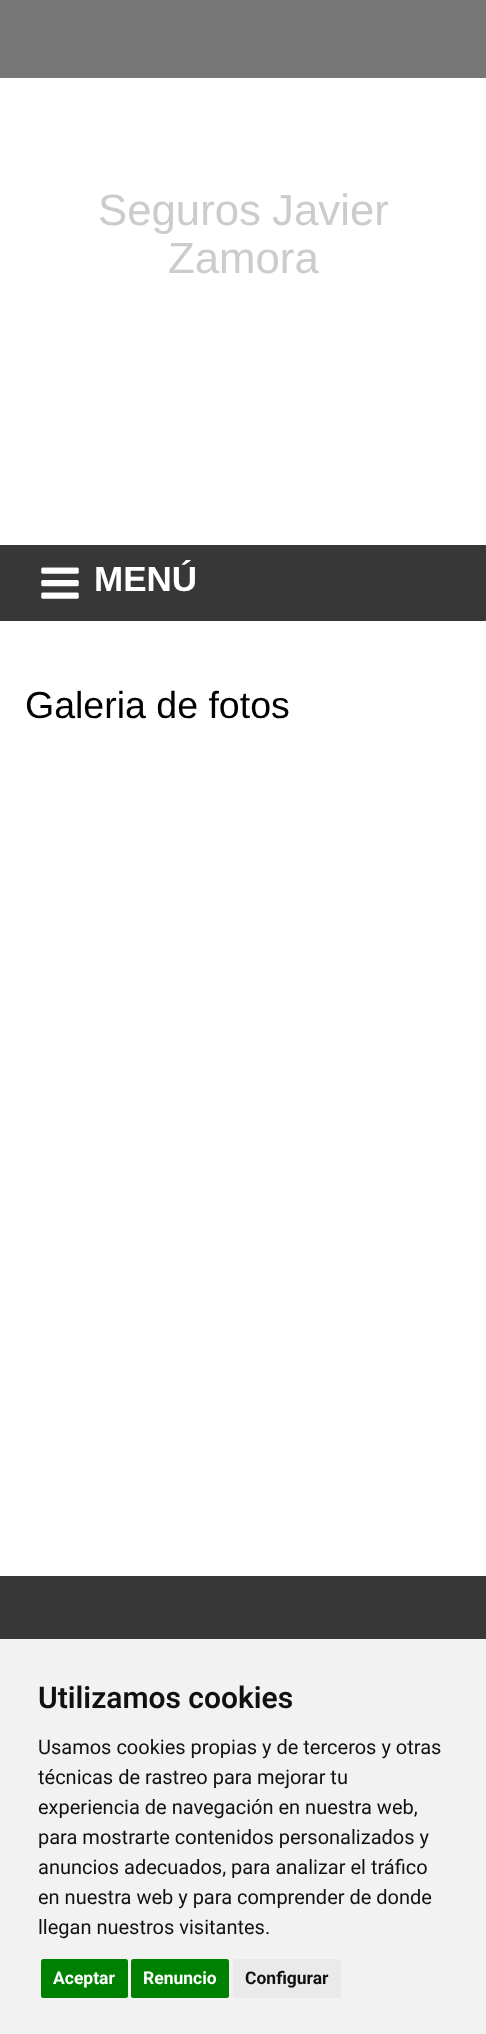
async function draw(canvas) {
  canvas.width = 486;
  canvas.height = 2034;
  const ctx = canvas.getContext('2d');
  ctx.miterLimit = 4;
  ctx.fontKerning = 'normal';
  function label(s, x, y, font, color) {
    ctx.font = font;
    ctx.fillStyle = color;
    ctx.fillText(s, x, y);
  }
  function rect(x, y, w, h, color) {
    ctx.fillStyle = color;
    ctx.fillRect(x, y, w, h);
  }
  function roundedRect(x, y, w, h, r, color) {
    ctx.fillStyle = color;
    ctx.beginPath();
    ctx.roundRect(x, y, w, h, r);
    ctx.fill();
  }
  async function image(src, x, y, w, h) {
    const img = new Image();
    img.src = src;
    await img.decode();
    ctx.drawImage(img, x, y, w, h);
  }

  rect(0, 0, 486, 2034, '#fff');
  rect(0, 0, 486, 78, '#777');
  ctx.wordSpacing = '-1px';
  label('Seguros Javier', 98, 225, '43.75px Liberation Sans', '#ccc');
  ctx.wordSpacing = '0px';
  label('Zamora', 168, 273, '43.75px Liberation Sans', '#ccc');
  rect(0, 545, 486, 76, '#373737');
  await image('assets/img1.png', 41, 567, 38, 32);
  label('MENÚ', 94, 591, 'bold 35px Liberation Sans', '#fff');
  label('Galeria de fotos', 25, 718, '37.5px Liberation Sans', '#000');
  rect(0, 1576, 486, 63, '#373737');
  rect(0, 1639, 486, 395, '#f2f2f2');
  label('Utilizamos cookies', 38, 1708, '600 30px Roboto', '#111');
  label('Usamos cookies propias y de terceros y otras', 38, 1754, '20px Roboto', '#111');
  label('técnicas de rastreo para mejorar tu', 38, 1784, '20px Roboto', '#111');
  label('experiencia de navegación en nuestra web,', 38, 1814, '20px Roboto', '#111');
  label('para mostrarte contenidos personalizados y', 38, 1844, '20px Roboto', '#111');
  label('anuncios adecuados, para analizar el tráfico', 38, 1874, '20px Roboto', '#111');
  label('en nuestra web y para comprender de donde', 38, 1904, '20px Roboto', '#111');
  label('llegan nuestros visitantes.', 38, 1934, '20px Roboto', '#111');
  roundedRect(41, 1959, 87, 39, 2.5, '#008000');
  label('Aceptar', 53, 1984, 'bold 17.5px Roboto', '#fff');
  roundedRect(131, 1959, 98, 39, 2.5, '#008000');
  label('Renuncio', 143, 1984, 'bold 17.5px Roboto', '#fff');
  roundedRect(233, 1959, 108, 39, 2.5, '#eaeaea');
  label('Configurar', 245, 1984, 'bold 17.5px Roboto', '#111');
}

draw(document.querySelector('canvas'));
